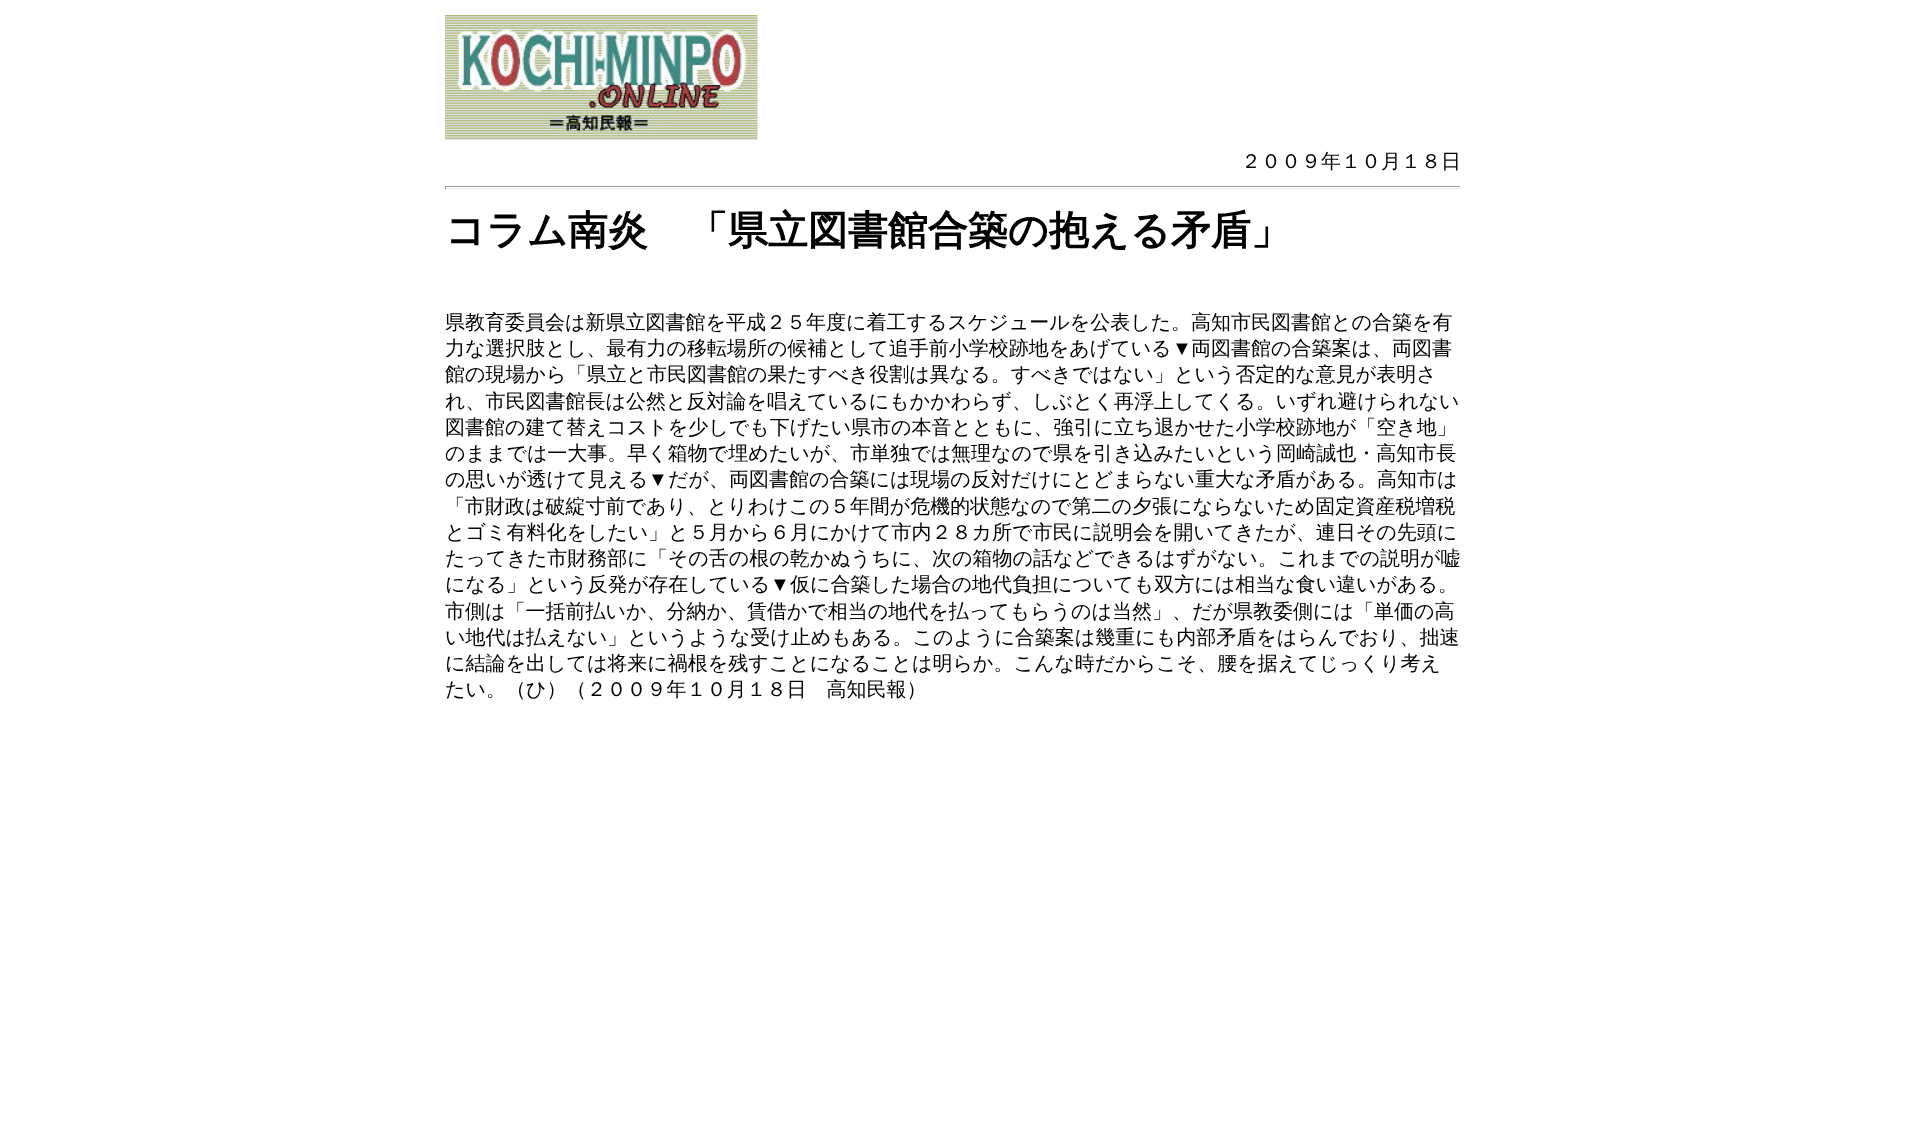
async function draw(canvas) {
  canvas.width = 1906;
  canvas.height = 1134;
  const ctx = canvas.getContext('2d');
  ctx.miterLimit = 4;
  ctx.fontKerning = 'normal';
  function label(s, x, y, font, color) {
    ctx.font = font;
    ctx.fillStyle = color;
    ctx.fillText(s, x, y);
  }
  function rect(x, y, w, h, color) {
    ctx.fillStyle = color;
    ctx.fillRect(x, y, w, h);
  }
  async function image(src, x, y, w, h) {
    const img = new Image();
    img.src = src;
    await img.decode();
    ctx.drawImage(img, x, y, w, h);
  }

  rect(0, 0, 1906, 1134, '#fff');
  await image('assets/img1.png', 445, 15, 313, 125);
  label('２００９年１０月１８日', 1241, 168, '500 20px WenQuanYi Zen Hei', '#000');
  rect(445, 186, 1016, 1, '#9f9f9f');
  rect(1460, 186, 1, 3, '#eee');
  rect(445, 188, 1016, 1, '#eee');
  rect(445, 186, 1, 3, '#9f9f9f');
  label('コラム南炎　「県立図書館合築の抱える矛盾」', 445, 244, 'bold 40px WenQuanYi Zen Hei', '#000');
  label('県教育委員会は新県立図書館を平成２５年度に着工するスケジュールを公表した。高知市民図書館との合築を有', 445, 329, '500 20px WenQuanYi Zen Hei', '#000');
  label('力な選択肢とし、最有力の移転場所の候補として追手前小学校跡地をあげている', 445, 355, '500 20px WenQuanYi Zen Hei', '#000');
  label('▼', 1172, 355, '20px Liberation Serif', '#000');
  label('両図書館の合築案は、両図書', 1191, 355, '500 20px WenQuanYi Zen Hei', '#000');
  label('館の現場から「県立と市民図書館の果たすべき役割は異なる。すべきではない」という否定的な意見が表明さ', 445, 381, '500 20px WenQuanYi Zen Hei', '#000');
  label('れ、市民図書館長は公然と反対論を唱えているにもかかわらず、しぶとく再浮上してくる。いずれ避けられない', 445, 408, '500 20px WenQuanYi Zen Hei', '#000');
  label('図書館の建て替えコストを少しでも下げたい県市の本音とともに、強引に立ち退かせた小学校跡地が「空き地」', 445, 434, '500 20px WenQuanYi Zen Hei', '#000');
  label('のままでは一大事。早く箱物で埋めたいが、市単独では無理なので県を引き込みたいという岡崎誠也・高知市長', 445, 460, '500 20px WenQuanYi Zen Hei', '#000');
  label('の思いが透けて見える', 445, 486, '500 20px WenQuanYi Zen Hei', '#000');
  label('▼', 648, 486, '20px Liberation Serif', '#000');
  label('だが、両図書館の合築には現場の反対だけにとどまらない重大な矛盾がある。高知市は', 668, 486, '500 20px WenQuanYi Zen Hei', '#000');
  label('「市財政は破綻寸前であり、とりわけこの５年間が危機的状態なので第二の夕張にならないため固定資産税増税', 445, 513, '500 20px WenQuanYi Zen Hei', '#000');
  label('とゴミ有料化をしたい」と５月から６月にかけて市内２８カ所で市民に説明会を開いてきたが、連日その先頭に', 445, 539, '500 20px WenQuanYi Zen Hei', '#000');
  label('たってきた市財務部に「その舌の根の乾かぬうちに、次の箱物の話などできるはずがない。これまでの説明が嘘', 445, 565, '500 20px WenQuanYi Zen Hei', '#000');
  label('になる」という反発が存在している', 445, 591, '500 20px WenQuanYi Zen Hei', '#000');
  label('▼', 770, 591, '20px Liberation Serif', '#000');
  label('仮に合築した場合の地代負担についても双方には相当な食い違いがある。', 790, 591, '500 20px WenQuanYi Zen Hei', '#000');
  label('市側は「一括前払いか、分納か、賃借かで相当の地代を払ってもらうのは当然」、だが県教委側には「単価の高', 445, 618, '500 20px WenQuanYi Zen Hei', '#000');
  label('い地代は払えない」というような受け止めもある。このように合築案は幾重にも内部矛盾をはらんでおり、拙速', 445, 644, '500 20px WenQuanYi Zen Hei', '#000');
  label('に結論を出しては将来に禍根を残すことになることは明らか。こんな時だからこそ、腰を据えてじっくり考え', 445, 670, '500 20px WenQuanYi Zen Hei', '#000');
  label('たい。（ひ）（２００９年１０月１８日　高知民報）', 445, 696, '500 20px WenQuanYi Zen Hei', '#000');
}

draw(document.querySelector('canvas'));
